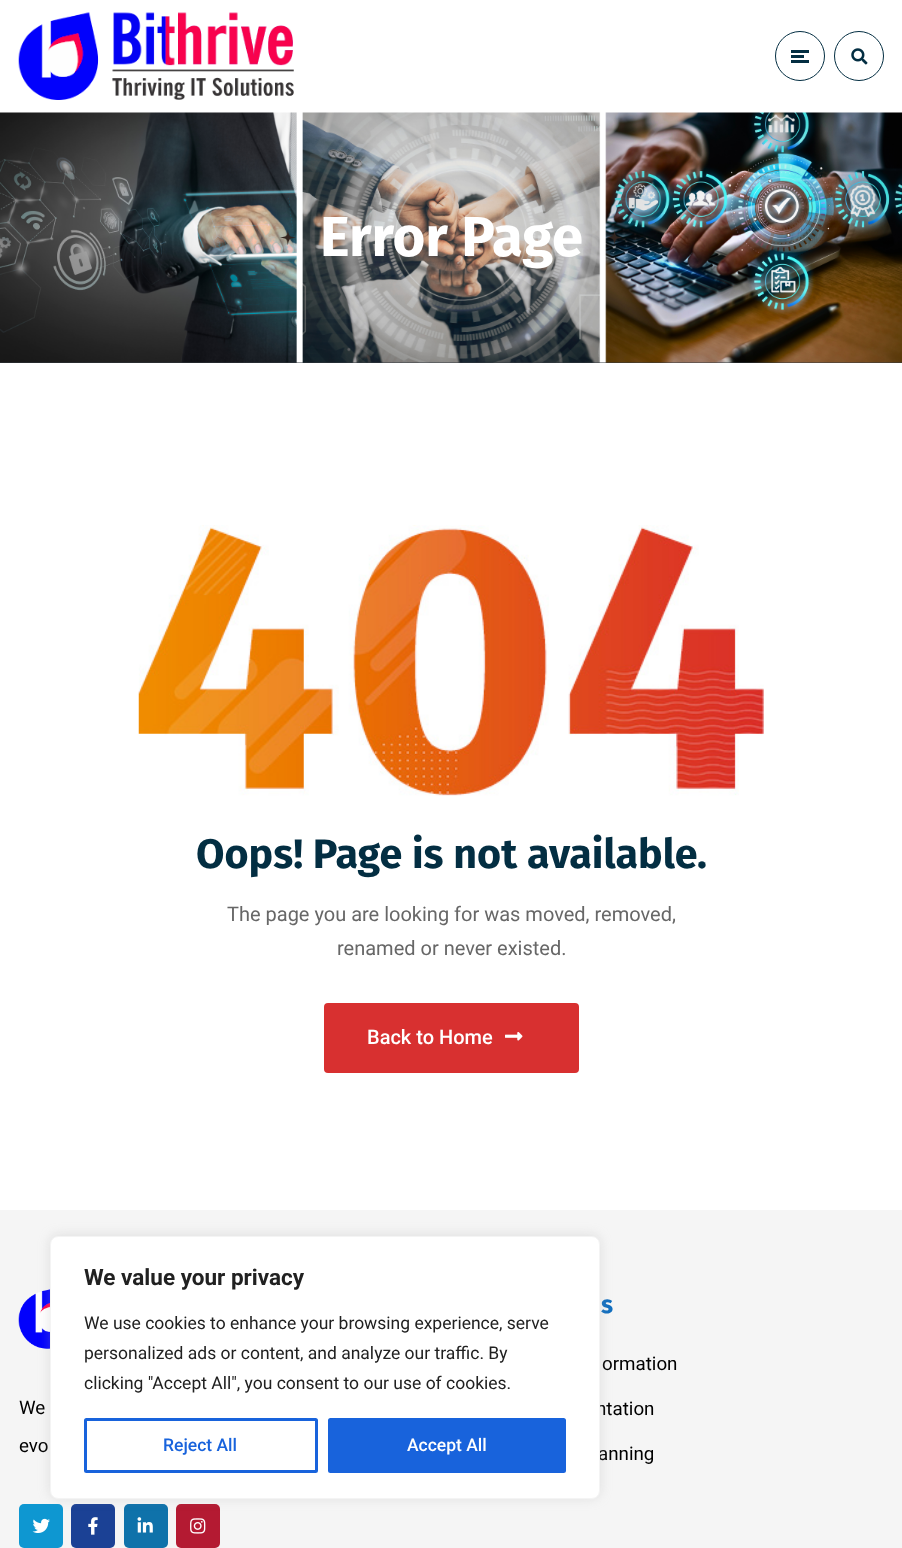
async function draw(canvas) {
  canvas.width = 902;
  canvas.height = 1548;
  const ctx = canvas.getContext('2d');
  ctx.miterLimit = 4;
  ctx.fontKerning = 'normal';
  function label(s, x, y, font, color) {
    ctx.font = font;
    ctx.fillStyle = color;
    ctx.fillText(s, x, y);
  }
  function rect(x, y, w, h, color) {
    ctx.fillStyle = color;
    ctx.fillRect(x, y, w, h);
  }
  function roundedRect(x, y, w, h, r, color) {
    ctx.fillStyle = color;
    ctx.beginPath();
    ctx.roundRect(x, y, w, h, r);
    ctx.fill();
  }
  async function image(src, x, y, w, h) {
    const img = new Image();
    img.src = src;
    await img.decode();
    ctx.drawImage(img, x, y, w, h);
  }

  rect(0, 0, 902, 1548, '#fff');
  await image('assets/img1.png', 18, 12, 276, 88);
  ctx.beginPath();
  ctx.arc(800, 56, 24.5, 0, 2 * Math.PI);
  ctx.strokeStyle = '#032e42';
  ctx.stroke();
  rect(791, 50, 18, 3, '#032e42');
  rect(791, 55, 13, 3, '#032e42');
  rect(791, 60, 18, 3, '#032e42');
  ctx.beginPath();
  ctx.arc(859, 56, 24.5, 0, 2 * Math.PI);
  ctx.stroke();
  await image('assets/img2.png', 851, 48, 17, 17);
  rect(0, 362, 902, 1, '#343a40');
  await image('assets/img3.png', 0, 112, 902, 251);
  label('Error Page', 320, 256, 'bold 56.25px Fira Sans', '#fff');
  await image('assets/img4.png', 138, 525, 626, 271);
  label('Oops! Page is not available.', 196, 868, 'bold 41.25px Fira Sans', '#032e42');
  label('The page you are looking for was moved, removed,', 227, 921, '20px Roboto', '#676767');
  label('renamed or never existed.', 337, 955, '20px Roboto', '#676767');
  roundedRect(324, 1003, 255, 70, 4, '#d83030');
  label('Back to Home', 367, 1044, '500 20px Roboto', '#fff');
  await image('assets/img5.png', 505, 1032, 18, 9);
  rect(0, 1210, 902, 338, '#f5f5f5');
  await image('assets/img6.png', 18, 1289, 32, 60);
  label('We', 19, 1414, '18.75px Roboto', '#000');
  label('evo', 19, 1452, '18.75px Roboto', '#000');
  roundedRect(19, 1504, 44, 44, 5, '#0e97d1');
  await image('assets/img7.png', 32, 1518, 18, 15);
  roundedRect(71, 1504, 44, 44, 5, '#1b4195');
  await image('assets/img8.png', 88, 1517, 10, 18);
  roundedRect(124, 1504, 44, 44, 5, '#0f72aa');
  await image('assets/img9.png', 137, 1517, 16, 16);
  roundedRect(176, 1504, 44, 44, 5, '#b41a32');
  await image('assets/img10.png', 190, 1518, 16, 16);
  label('s', 601, 1313, 'bold 25px Fira Sans', '#116ebf');
  label('ormation', 602, 1370, '18.75px Roboto', '#000');
  label('ntation', 596, 1415, '18.75px Roboto', '#000');
  label('anning', 598, 1460, '18.75px Roboto', '#000');
  ctx.fillStyle = '#acabab4d';
  ctx.filter = 'blur(6px)';
  ctx.beginPath();
  ctx.roundRect(50, 1235, 550, 263, 8);
  ctx.fill();
  ctx.filter = 'none';
  ctx.fillStyle = '#fff';
  ctx.beginPath();
  ctx.roundRect(50.5, 1236.5, 549, 262, 7.5);
  ctx.fill();
  ctx.strokeStyle = '#f4f4f4';
  ctx.stroke();
  label('We value your privacy', 84, 1285, 'bold 22.5px Roboto', '#212121');
  label('We use cookies to enhance your browsing experience, serve', 84, 1329, '17.5px Roboto', '#212121');
  label('personalized ads or content, and analyze our traffic. By', 84, 1359, '17.5px Roboto', '#212121');
  label('clicking "Accept All", you consent to our use of cookies.', 84, 1389, '17.5px Roboto', '#212121');
  ctx.beginPath();
  ctx.roundRect(85.5, 1419.5, 231, 52, 1);
  ctx.strokeStyle = '#1863dc';
  ctx.lineWidth = 3;
  ctx.stroke();
  label('Reject All', 163, 1451, '500 17.5px Roboto', '#1863dc');
  ctx.beginPath();
  ctx.roundRect(329.5, 1419.5, 235, 52, 1);
  ctx.fill();
  ctx.stroke();
  label('Accept All', 407, 1451, '500 17.5px Roboto', '#fff');
}

draw(document.querySelector('canvas'));
